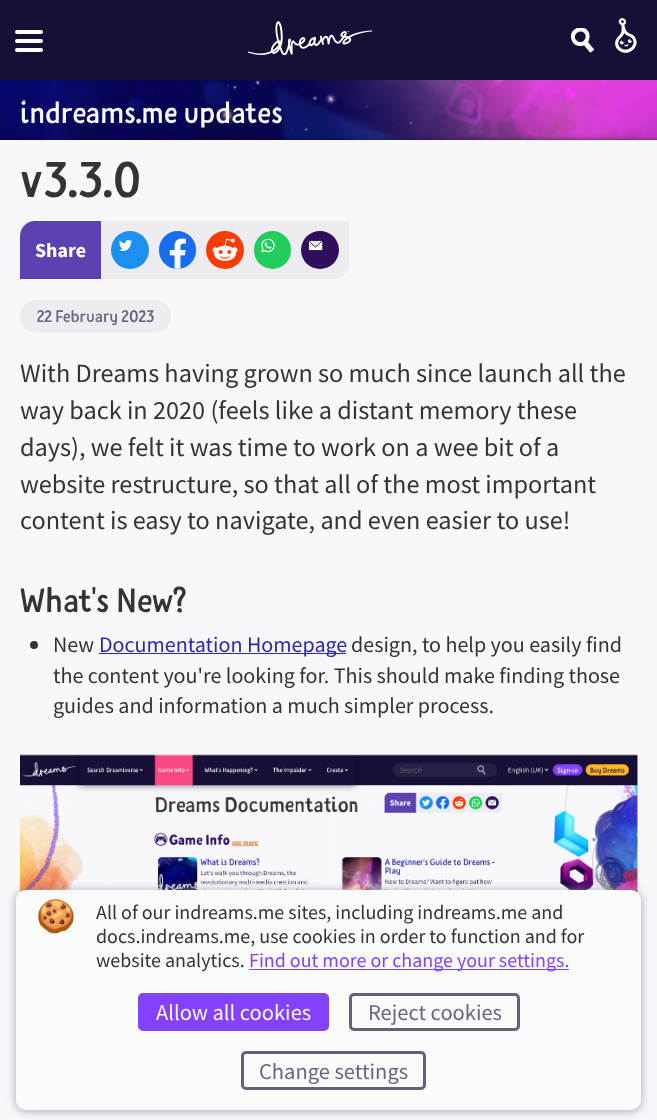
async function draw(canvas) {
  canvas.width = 657;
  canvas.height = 1120;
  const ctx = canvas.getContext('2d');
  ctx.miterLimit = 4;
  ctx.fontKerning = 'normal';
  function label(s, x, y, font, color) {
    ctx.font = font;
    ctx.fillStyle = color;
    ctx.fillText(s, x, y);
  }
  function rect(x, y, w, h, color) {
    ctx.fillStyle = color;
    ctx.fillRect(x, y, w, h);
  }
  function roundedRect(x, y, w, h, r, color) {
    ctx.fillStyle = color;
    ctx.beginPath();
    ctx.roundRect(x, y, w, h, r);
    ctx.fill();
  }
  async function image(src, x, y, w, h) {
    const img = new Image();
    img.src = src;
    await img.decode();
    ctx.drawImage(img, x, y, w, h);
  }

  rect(0, 0, 657, 1120, '#f8f8fb');
  rect(0, 0, 657, 80, '#170f36');
  roundedRect(15, 30, 28, 4, 2, '#fff');
  roundedRect(15, 39, 28, 4, 2, '#fff');
  roundedRect(15, 48, 28, 4, 2, '#fff');
  await image('assets/img1.png', 248, 21, 125, 35);
  await image('assets/img2.png', 570, 28, 25, 25);
  await image('assets/img3.png', 615, 18, 22, 35);
  await image('assets/img4.png', 0, 80, 657, 60);
  label('indreams.me updates', 20, 123, '30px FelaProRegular', '#f8f8fb');
  label('v3.3.0', 20, 197, '50px FelaProRegular', '#343434');
  ctx.fillStyle = '#5c42b1';
  ctx.beginPath();
  ctx.roundRect(20, 221, 81, 58, [15, 0, 0, 0]);
  ctx.fill();
  label('Share', 35, 257, 'bold 20px Source Sans Pro', '#fff');
  ctx.fillStyle = '#ececf1';
  ctx.beginPath();
  ctx.roundRect(101, 221, 248, 58, [0, 0, 15, 0]);
  ctx.fill();
  ctx.fillStyle = '#1b90ee';
  ctx.beginPath();
  ctx.arc(130, 250, 19, 0, 2 * Math.PI);
  ctx.fill();
  await image('assets/img5.png', 119, 240, 13, 11);
  roundedRect(159, 231, 37, 38, 18.5, '#176cf0');
  await image('assets/img6.png', 169, 238, 17, 31);
  ctx.fillStyle = '#ff3c00';
  ctx.beginPath();
  ctx.arc(225, 250, 19, 0, 2 * Math.PI);
  ctx.fill();
  await image('assets/img7.png', 212, 238, 26, 23);
  roundedRect(254, 231, 37, 38, 18.5, '#21cd5b');
  await image('assets/img8.png', 261, 239, 14, 14);
  ctx.fillStyle = '#2f0f5c';
  ctx.beginPath();
  ctx.arc(320, 250, 19, 0, 2 * Math.PI);
  ctx.fill();
  await image('assets/img9.png', 309, 240, 14, 11);
  roundedRect(20, 300, 151, 33, 16.5, '#ececf1');
  label('22 February 2023', 37, 322, '16.75px FelaProRegular', '#6b667f');
  label('With Dreams having grown so much since launch all the', 20, 382, '26.25px Source Sans Pro', '#343434');
  label('way back in 2020 (feels like a distant memory these', 20, 419, '26.25px Source Sans Pro', '#343434');
  label('days), we felt it was time to work on a wee bit of a', 20, 456, '26.25px Source Sans Pro', '#343434');
  label('website restructure, so that all of the most important', 20, 493, '26.25px Source Sans Pro', '#343434');
  label('content is easy to navigate, and even easier to use!', 20, 529, '26.25px Source Sans Pro', '#343434');
  label('What\'s New?', 20, 612, '33.5px FelaProRegular', '#343434');
  ctx.beginPath();
  ctx.arc(34, 645, 4, 0, 2 * Math.PI);
  ctx.fill();
  label('New', 53, 652, '22.05px Source Sans Pro', '#343434');
  rect(99, 653, 247, 1, '#2a28af');
  label('Documentation Homepage', 99, 652, '22.05px Source Sans Pro', '#2a28af');
  label('design, to help you easily find', 351, 652, '22.05px Source Sans Pro', '#343434');
  label('the content you\'re looking for. This should make finding those', 53, 683, '22.05px Source Sans Pro', '#343434');
  label('guides and information a much simpler process.', 53, 713, '22.05px Source Sans Pro', '#343434');
  await image('assets/img10.png', 20, 754, 618, 139);
  ctx.fillStyle = '#a4a1b0';
  ctx.filter = 'blur(5px)';
  ctx.beginPath();
  ctx.roundRect(16, 891, 625, 220, 10);
  ctx.fill();
  ctx.filter = 'none';
  roundedRect(16, 890, 625, 220, 10, '#fafbfb');
  label('🍪', 36, 927, '32px Noto Color Emoji', '#343434');
  label('All of our indreams.me sites, including indreams.me and', 96, 919, '20px Source Sans Pro', '#343434');
  label('docs.indreams.me, use cookies in order to function and for', 96, 943, '20px Source Sans Pro', '#343434');
  label('website analytics.', 96, 967, '20px Source Sans Pro', '#343434');
  rect(249, 969, 320, 1, '#8441ff');
  label('Find out more or change your settings.', 249, 967, '20px Source Sans Pro', '#8441ff');
  ctx.beginPath();
  ctx.roundRect(139.5, 994.5, 188, 35, 3.5);
  ctx.fill();
  ctx.strokeStyle = '#8441ff';
  ctx.lineWidth = 3;
  ctx.stroke();
  label('Allow all cookies', 156, 1020, '22.5px Source Sans Pro', '#f8f8fb');
  ctx.beginPath();
  ctx.roundRect(350.5, 994.5, 168, 35, 3.5);
  ctx.strokeStyle = '#66617a';
  ctx.stroke();
  label('Reject cookies', 368, 1020, '22.5px Source Sans Pro', '#6b667f');
  ctx.beginPath();
  ctx.roundRect(242.5, 1052.5, 182, 36, 3.5);
  ctx.stroke();
  label('Change settings', 259, 1079, '22.5px Source Sans Pro', '#6b667f');
}

draw(document.querySelector('canvas'));
